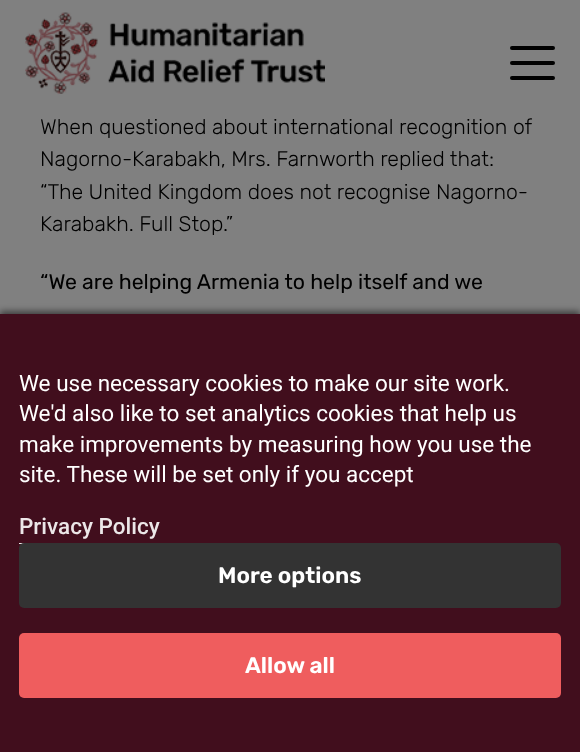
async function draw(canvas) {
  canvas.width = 580;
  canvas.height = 752;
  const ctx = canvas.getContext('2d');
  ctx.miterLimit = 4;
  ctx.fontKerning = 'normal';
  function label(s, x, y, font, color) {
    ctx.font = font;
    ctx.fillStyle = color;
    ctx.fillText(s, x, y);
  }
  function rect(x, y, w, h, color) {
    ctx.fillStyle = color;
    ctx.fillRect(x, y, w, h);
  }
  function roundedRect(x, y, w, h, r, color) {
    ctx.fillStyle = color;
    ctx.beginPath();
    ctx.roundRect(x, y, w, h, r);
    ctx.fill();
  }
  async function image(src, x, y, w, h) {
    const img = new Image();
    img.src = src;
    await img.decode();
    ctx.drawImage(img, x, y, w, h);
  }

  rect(0, 0, 580, 752, '#808080');
  await image('assets/img1.png', 25, 12, 300, 83);
  ctx.fillStyle = '#000';
  ctx.beginPath();
  ctx.roundRect(510, 46, 23, 4, [2, 0, 0, 2]);
  ctx.fill();
  ctx.beginPath();
  ctx.roundRect(533, 46, 22, 4, [0, 2, 2, 0]);
  ctx.fill();
  ctx.beginPath();
  ctx.roundRect(510, 61, 23, 4, [2, 0, 0, 2]);
  ctx.fill();
  ctx.beginPath();
  ctx.roundRect(533, 61, 22, 4, [0, 2, 2, 0]);
  ctx.fill();
  ctx.beginPath();
  ctx.roundRect(510, 76, 23, 4, [2, 0, 0, 2]);
  ctx.fill();
  ctx.beginPath();
  ctx.roundRect(533, 76, 22, 4, [0, 2, 2, 0]);
  ctx.fill();
  label('When questioned about international recognition of', 40, 134, '300 21.25px Rubik', '#000');
  label('Nagorno-Karabakh, Mrs. Farnworth replied that:', 40, 166, '300 21.25px Rubik', '#000');
  label('“The United Kingdom does not recognise Nagorno-', 40, 199, '300 21.25px Rubik', '#000');
  label('Karabakh. Full Stop.”', 40, 231, '300 21.25px Rubik', '#000');
  label('“We are helping Armenia to help itself and we', 40, 289, '21.25px Rubik', '#000');
  ctx.fillStyle = '#00000080';
  ctx.filter = 'blur(3px)';
  ctx.beginPath();
  ctx.rect(0, 311, 580, 439);
  ctx.fill();
  ctx.filter = 'none';
  rect(0, 314, 580, 438, '#410e1d');
  label('We use necessary cookies to make our site work.', 19, 391, '22.5px Roboto', '#fff');
  label('We\'d also like to set analytics cookies that help us', 19, 421, '22.5px Roboto', '#fff');
  label('make improvements by measuring how you use the', 19, 452, '22.5px Roboto', '#fff');
  label('site. These will be set only if you accept', 19, 482, '22.5px Roboto', '#fff');
  label('Privacy Policy', 19, 534, '500 22.5px Roboto', '#ece7e8');
  rect(19, 543, 5, 1, '#ece7e8');
  roundedRect(19, 543, 542, 65, 5, '#333');
  label('More options', 218, 583, '600 22.5px Rubik', '#fff');
  roundedRect(19, 633, 542, 65, 5, '#ef5d5e');
  label('Allow all', 245, 673, '600 22.5px Rubik', '#fff');
}

draw(document.querySelector('canvas'));
